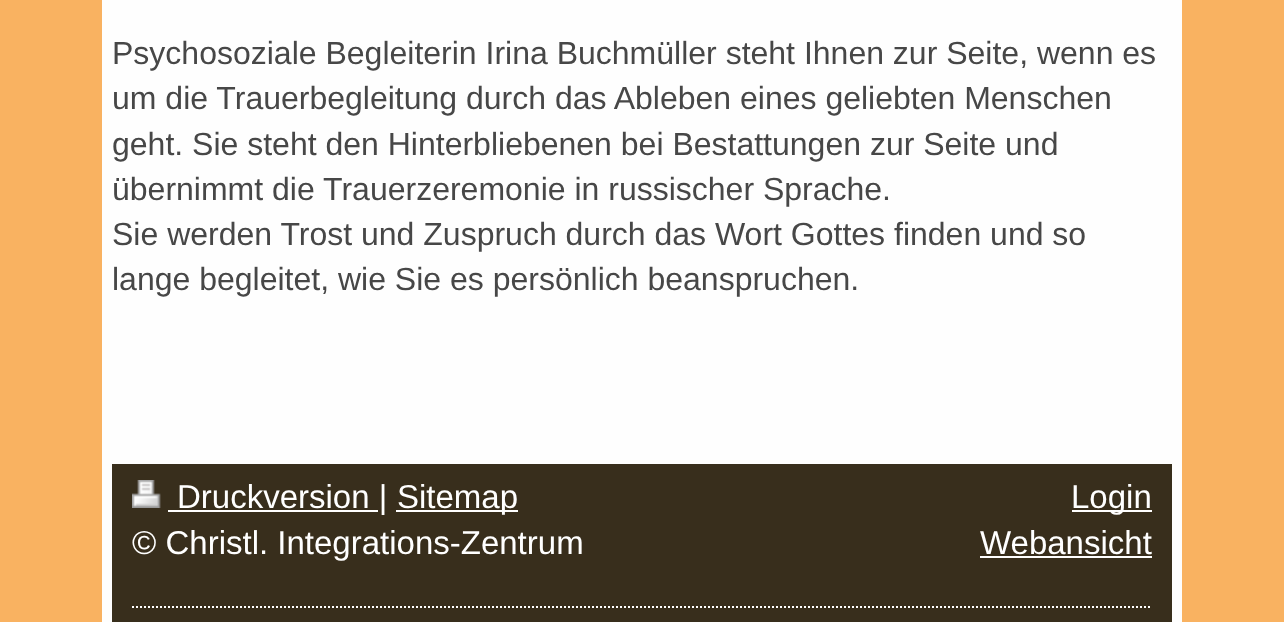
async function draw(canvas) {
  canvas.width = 1284;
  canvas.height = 622;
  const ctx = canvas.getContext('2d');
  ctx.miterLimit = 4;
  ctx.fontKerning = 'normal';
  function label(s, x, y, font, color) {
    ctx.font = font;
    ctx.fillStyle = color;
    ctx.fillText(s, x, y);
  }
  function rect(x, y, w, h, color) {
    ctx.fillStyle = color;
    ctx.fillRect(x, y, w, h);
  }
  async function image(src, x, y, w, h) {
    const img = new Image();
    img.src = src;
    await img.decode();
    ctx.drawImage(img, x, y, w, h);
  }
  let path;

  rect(0, 0, 1284, 622, '#f9b261');
  rect(102, 0, 1080, 622, '#fefefe');
  label('Psychosoziale Begleiterin Irina Buchmüller steht Ihnen zur Seite, wenn es', 112, 64, '32px Liberation Sans', '#474747');
  label('um die Trauerbegleitung durch das Ableben eines geliebten Menschen', 112, 109, '32px Liberation Sans', '#474747');
  label('geht. Sie steht den Hinterbliebenen bei Bestattungen zur Seite und', 112, 155, '32px Liberation Sans', '#474747');
  label('übernimmt die Trauerzeremonie in russischer Sprache.', 112, 200, '32px Liberation Sans', '#474747');
  label('Sie werden Trost und Zuspruch durch das Wort Gottes finden und so', 112, 245, '32px Liberation Sans', '#474747');
  label('lange begleitet, wie Sie es persönlich beanspruchen.', 112, 290, '32px Liberation Sans', '#474747');
  rect(112, 464, 1060, 158, '#382e1c');
  await image('assets/img1.png', 132, 480, 29, 28);
  rect(168, 510, 210, 2, '#fff');
  label('Druckversion |', 177, 508, '33px Liberation Sans', '#fff');
  rect(396, 510, 122, 2, '#fff');
  label('Sitemap', 397, 508, '33px Liberation Sans', '#fff');
  label('© Christl. Integrations-Zentrum', 132, 554, '33px Liberation Sans', '#fff');
  rect(1072, 510, 80, 2, '#fff');
  label('Login', 1071, 508, '33px Liberation Sans', '#fff');
  label('Webansicht', 980, 554, '33px Liberation Sans', '#fff');
  rect(980, 556, 172, 2, '#fff');
  path = new Path2D('M132 607H1152');
  ctx.strokeStyle = '#fff';
  ctx.lineWidth = 2;
  ctx.setLineDash([2, 2]);
  ctx.stroke(path);
}

draw(document.querySelector('canvas'));
